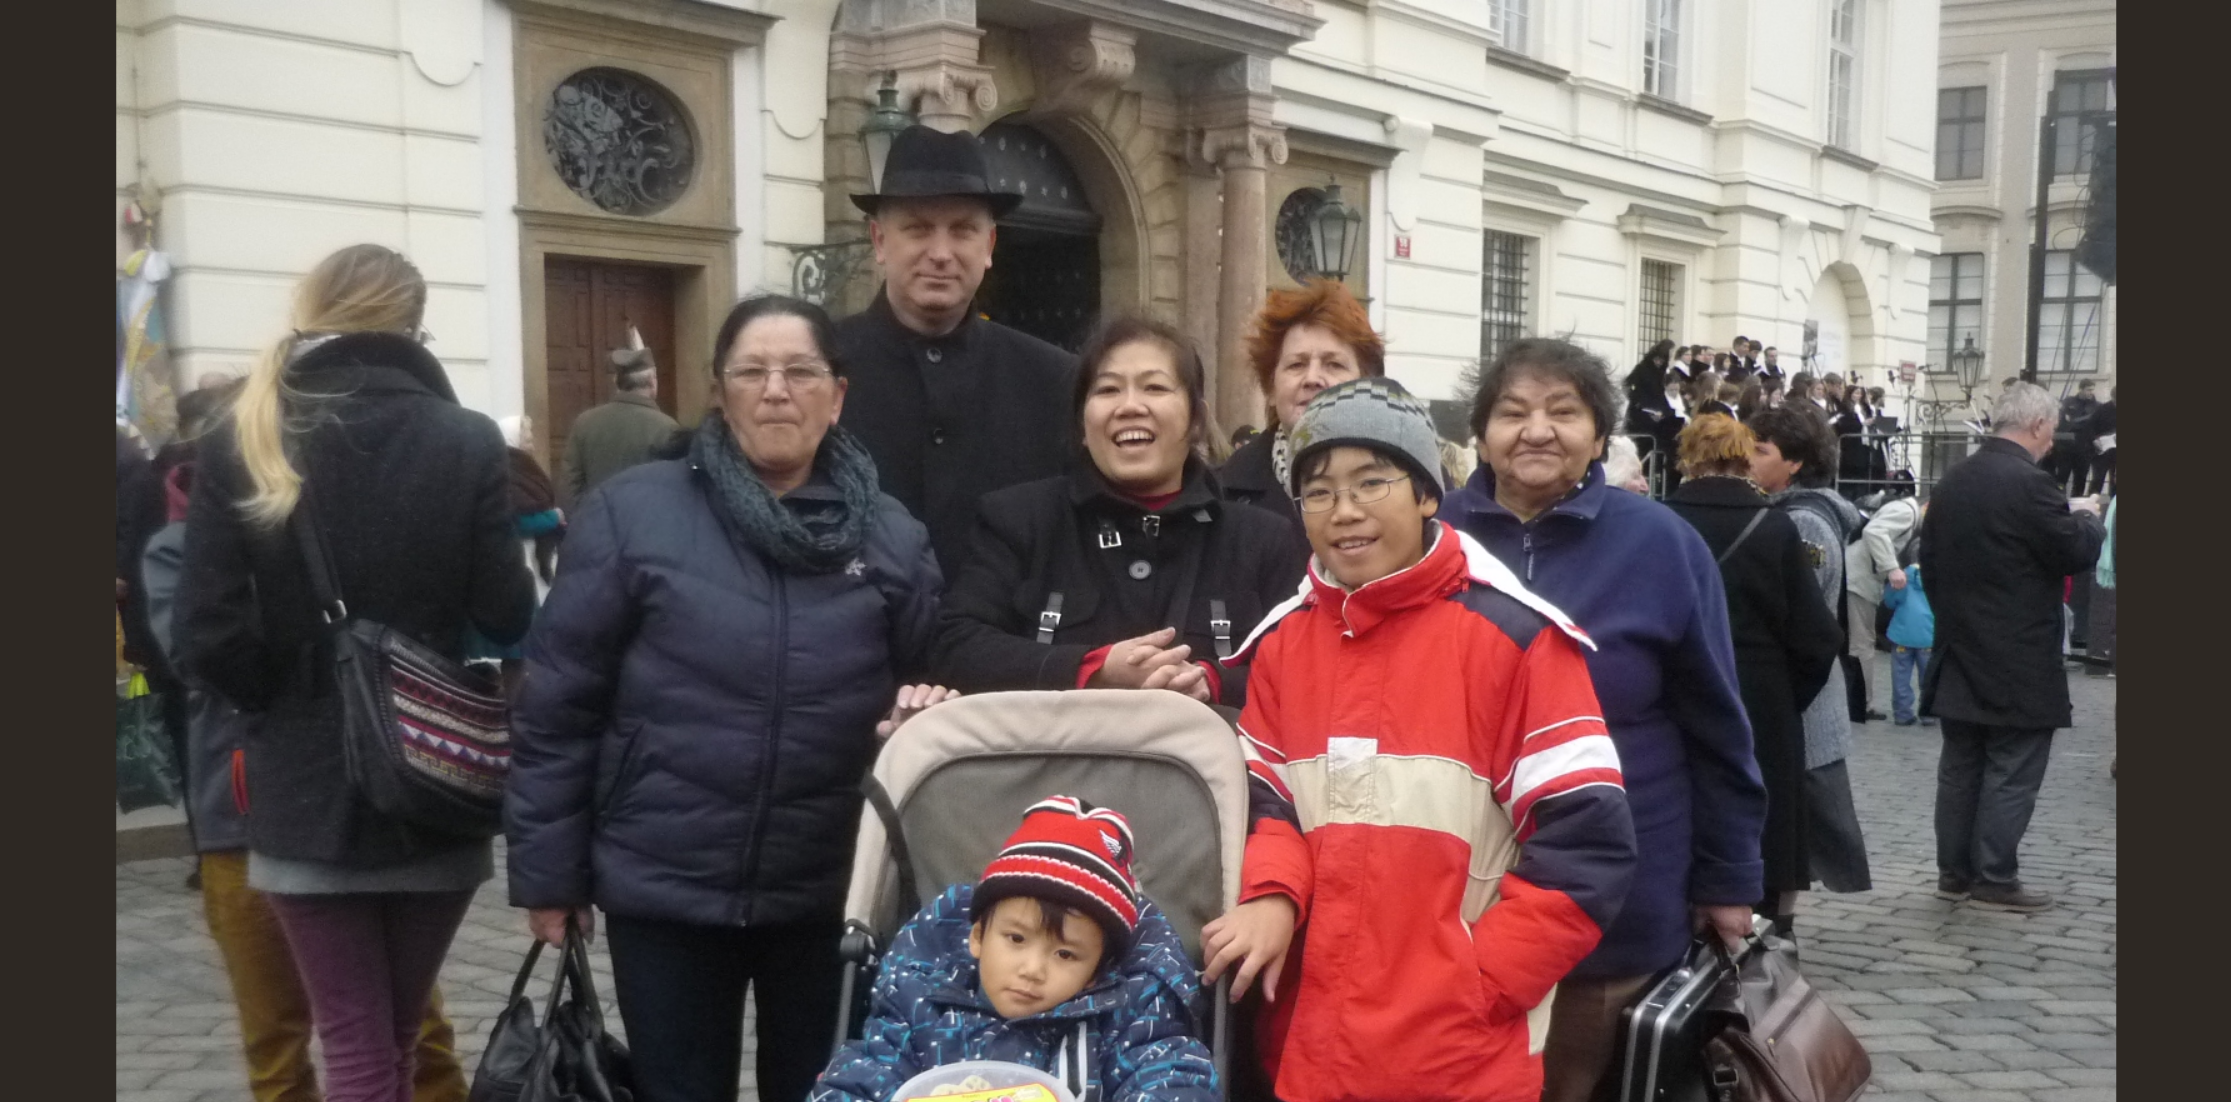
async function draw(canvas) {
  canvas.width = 2231;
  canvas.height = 1102;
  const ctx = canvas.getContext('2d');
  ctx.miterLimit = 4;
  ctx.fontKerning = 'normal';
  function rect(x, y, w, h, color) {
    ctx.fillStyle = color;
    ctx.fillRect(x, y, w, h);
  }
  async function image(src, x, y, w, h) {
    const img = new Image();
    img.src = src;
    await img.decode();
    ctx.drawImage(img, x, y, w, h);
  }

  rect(0, 0, 2231, 1102, '#2d2823');
  await image('assets/img1.png', 116, 0, 2001, 1102);
}

draw(document.querySelector('canvas'));
